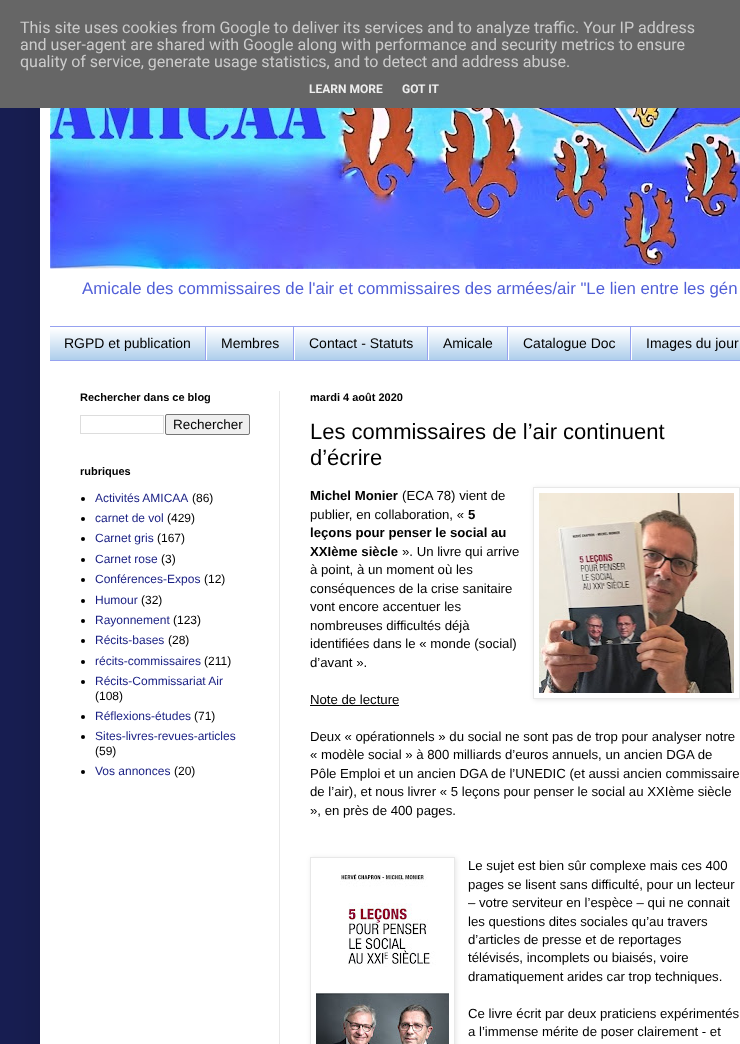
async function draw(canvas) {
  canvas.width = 740;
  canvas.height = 1044;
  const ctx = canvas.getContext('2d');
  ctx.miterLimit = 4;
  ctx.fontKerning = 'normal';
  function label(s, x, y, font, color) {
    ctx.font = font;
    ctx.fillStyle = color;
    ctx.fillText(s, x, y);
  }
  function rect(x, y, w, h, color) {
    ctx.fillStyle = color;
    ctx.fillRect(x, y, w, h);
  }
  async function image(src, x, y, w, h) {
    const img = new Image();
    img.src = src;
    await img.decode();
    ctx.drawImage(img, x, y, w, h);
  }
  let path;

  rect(0, 0, 740, 1044, '#181e52');
  ctx.fillStyle = '#00000026';
  ctx.filter = 'blur(20px)';
  ctx.beginPath();
  ctx.rect(40, 30, 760, 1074);
  ctx.fill();
  ctx.filter = 'none';
  rect(0, 0, 740, 108, '#666');
  label('This site uses cookies from Google to deliver its services and to analyze traffic. Your IP address', 20, 33, '16px Roboto', '#ccc');
  label('and user-agent are shared with Google along with performance and security metrics to ensure', 20, 50, '16px Roboto', '#ccc');
  label('quality of service, generate usage statistics, and to detect and address abuse.', 20, 67, '16px Roboto', '#ccc');
  label('LEARN MORE', 309, 93, 'bold 12px Roboto', '#eee');
  label('GOT IT', 402, 93, 'bold 12px Roboto', '#eee');
  rect(40, 108, 700, 936, '#fff');
  await image('assets/img1.png', 50, 108, 690, 161);
  label('Amicale des commissaires de l\'air et commissaires des armées/air "Le lien entre les gén', 82, 294, '16.8px Liberation Sans', '#515fd8');
  rect(50, 328, 690, 32, '#9fc5e8');
  await image('assets/img2.png', 50, 327, 690, 33);
  rect(50, 326, 690, 1, '#96a2f0');
  rect(50, 360, 690, 1, '#96a2f0');
  rect(205, 327, 1, 33, '#96a2f0');
  label('RGPD et publication', 64, 348, '14px Liberation Sans', '#000');
  rect(293, 327, 1, 33, '#96a2f0');
  rect(206, 327, 1, 33, '#fff');
  label('Membres', 221, 348, '14px Liberation Sans', '#000');
  rect(427, 327, 1, 33, '#96a2f0');
  rect(294, 327, 1, 33, '#fff');
  label('Contact - Statuts', 309, 348, '14px Liberation Sans', '#000');
  rect(507, 327, 1, 33, '#96a2f0');
  rect(428, 327, 1, 33, '#fff');
  label('Amicale', 443, 348, '14px Liberation Sans', '#000');
  rect(630, 327, 1, 33, '#96a2f0');
  rect(508, 327, 1, 33, '#fff');
  label('Catalogue Doc', 523, 348, '14px Liberation Sans', '#000');
  rect(631, 327, 1, 33, '#fff');
  label('Images du jour', 646, 348, '14px Liberation Sans', '#000');
  rect(279, 391, 1, 653, '#e8e8e8');
  label('Rechercher dans ce blog', 80, 401, 'bold 11px Liberation Sans', '#000');
  ctx.strokeStyle = '#ddd';
  ctx.strokeRect(80.5, 415.5, 83, 18);
  ctx.fillStyle = '#efefef';
  ctx.beginPath();
  ctx.roundRect(165.5, 414.5, 84, 20, 1.5);
  ctx.fill();
  ctx.strokeStyle = '#767676';
  ctx.stroke();
  label('Rechercher', 173, 429, '13.5px Liberation Sans', '#000');
  label('rubriques', 80, 475, 'bold 11px Liberation Sans', '#000');
  ctx.beginPath();
  ctx.arc(83, 499, 2, 0, 2 * Math.PI);
  ctx.fill();
  label('Activités AMICAA', 95, 502, '12px Liberation Sans', '#171d82');
  label('(86)', 192, 502, '12px Liberation Sans', '#000');
  ctx.beginPath();
  ctx.arc(83, 519, 2, 0, 2 * Math.PI);
  ctx.fill();
  label('carnet de vol', 95, 522, '12px Liberation Sans', '#171d82');
  label('(429)', 167, 522, '12px Liberation Sans', '#000');
  ctx.beginPath();
  ctx.arc(83, 539, 2, 0, 2 * Math.PI);
  ctx.fill();
  label('Carnet gris', 95, 542, '12px Liberation Sans', '#171d82');
  label('(167)', 157, 542, '12px Liberation Sans', '#000');
  ctx.beginPath();
  ctx.arc(83, 560, 2, 0, 2 * Math.PI);
  ctx.fill();
  label('Carnet rose', 95, 563, '12px Liberation Sans', '#171d82');
  label('(3)', 161, 563, '12px Liberation Sans', '#000');
  ctx.beginPath();
  ctx.arc(83, 580, 2, 0, 2 * Math.PI);
  ctx.fill();
  label('Conférences-Expos', 95, 583, '12px Liberation Sans', '#171d82');
  label('(12)', 204, 583, '12px Liberation Sans', '#000');
  ctx.beginPath();
  ctx.arc(83, 601, 2, 0, 2 * Math.PI);
  ctx.fill();
  label('Humour', 95, 604, '12px Liberation Sans', '#171d82');
  label('(32)', 141, 604, '12px Liberation Sans', '#000');
  ctx.beginPath();
  ctx.arc(83, 621, 2, 0, 2 * Math.PI);
  ctx.fill();
  label('Rayonnement', 95, 624, '12px Liberation Sans', '#171d82');
  label('(123)', 173, 624, '12px Liberation Sans', '#000');
  ctx.beginPath();
  ctx.arc(83, 641, 2, 0, 2 * Math.PI);
  ctx.fill();
  label('Récits-bases', 95, 644, '12px Liberation Sans', '#171d82');
  label('(28)', 168, 644, '12px Liberation Sans', '#000');
  ctx.beginPath();
  ctx.arc(83, 662, 2, 0, 2 * Math.PI);
  ctx.fill();
  label('récits-commissaires', 95, 665, '12px Liberation Sans', '#171d82');
  label('(211)', 204, 665, '12px Liberation Sans', '#000');
  ctx.beginPath();
  ctx.arc(83, 682, 2, 0, 2 * Math.PI);
  ctx.fill();
  label('Récits-Commissariat Air', 95, 685, '12px Liberation Sans', '#171d82');
  label('(108)', 95, 700, '12px Liberation Sans', '#000');
  ctx.beginPath();
  ctx.arc(83, 717, 2, 0, 2 * Math.PI);
  ctx.fill();
  label('Réflexions-études', 95, 720, '12px Liberation Sans', '#171d82');
  label('(71)', 194, 720, '12px Liberation Sans', '#000');
  ctx.beginPath();
  ctx.arc(83, 737, 2, 0, 2 * Math.PI);
  ctx.fill();
  label('Sites-livres-revues-articles', 95, 740, '12px Liberation Sans', '#171d82');
  label('(59)', 95, 755, '12px Liberation Sans', '#000');
  ctx.beginPath();
  ctx.arc(83, 772, 2, 0, 2 * Math.PI);
  ctx.fill();
  label('Vos annonces', 95, 775, '12px Liberation Sans', '#171d82');
  label('(20)', 174, 775, '12px Liberation Sans', '#000');
  label('mardi 4 août 2020', 310, 401, 'bold 11px Liberation Sans', '#000');
  label('Les commissaires de l’air continuent', 310, 439, '22px Liberation Sans', '#000');
  label('d’écrire', 310, 465, '22px Liberation Sans', '#000');
  label('Michel Monier', 310, 500, 'bold 13.2px Liberation Sans', '#000');
  label('(ECA 78) vient de', 402, 500, '13.2px Liberation Sans', '#000');
  ctx.save();
  path = new Path2D('M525 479H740V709H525ZM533 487H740V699H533Z');
  ctx.clip(path, 'evenodd');
  ctx.fillStyle = '#0000001a';
  ctx.filter = 'blur(2.5px)';
  ctx.beginPath();
  ctx.rect(534, 488, 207, 212);
  ctx.fill();
  ctx.filter = 'none';
  ctx.restore();
  ctx.strokeStyle = '#e8e8e8';
  ctx.strokeRect(533.5, 487.5, 206, 211);
  await image('assets/img3.png', 539, 493, 195, 200);
  label('publier, en collaboration, «', 310, 519, '13.2px Liberation Sans', '#000');
  label('5', 468, 519, 'bold 13.2px Liberation Sans', '#000');
  label('leçons pour penser le social au', 310, 537, 'bold 13.2px Liberation Sans', '#000');
  label('XXIème siècle', 310, 556, 'bold 13.2px Liberation Sans', '#000');
  label('». Un livre qui arrive', 402, 556, '13.2px Liberation Sans', '#000');
  label('à point, à un moment où les', 310, 574, '13.2px Liberation Sans', '#000');
  label('conséquences de la crise sanitaire', 310, 593, '13.2px Liberation Sans', '#000');
  label('vont encore accentuer les', 310, 611, '13.2px Liberation Sans', '#000');
  label('nombreuses difficultés déjà', 310, 630, '13.2px Liberation Sans', '#000');
  label('identifiées dans le « monde (social)', 310, 648, '13.2px Liberation Sans', '#000');
  label('d’avant ».', 310, 667, '13.2px Liberation Sans', '#000');
  label('Note de lecture', 310, 704, '13.2px Liberation Sans', '#000');
  rect(310, 705, 89, 1, '#000');
  label('Deux « opérationnels » du social ne sont pas de trop pour analyser notre', 310, 741, '13.2px Liberation Sans', '#000');
  label('« modèle social » à 800 milliards d’euros annuels, un ancien DGA de', 310, 759, '13.2px Liberation Sans', '#000');
  label('Pôle Emploi et un ancien DGA de l’UNEDIC (et aussi ancien commissaire', 310, 778, '13.2px Liberation Sans', '#000');
  label('de l’air), et nous livrer « 5 leçons pour penser le social au XXIème siècle', 310, 796, '13.2px Liberation Sans', '#000');
  label('», en près de 400 pages.', 310, 815, '13.2px Liberation Sans', '#000');
  ctx.save();
  path = new Path2D('M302 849H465V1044H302ZM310 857H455V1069H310Z');
  ctx.clip(path, 'evenodd');
  ctx.fillStyle = '#0000001a';
  ctx.filter = 'blur(2.5px)';
  ctx.beginPath();
  ctx.rect(311, 858, 145, 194);
  ctx.fill();
  ctx.filter = 'none';
  ctx.restore();
  ctx.strokeRect(310.5, 857.5, 144, 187);
  await image('assets/img4.png', 316, 871, 133, 173);
  label('Le sujet est bien sûr complexe mais ces 400', 468, 870, '13.2px Liberation Sans', '#000');
  label('pages se lisent sans difficulté, pour un lecteur', 468, 889, '13.2px Liberation Sans', '#000');
  label('– votre serviteur en l’espèce – qui ne connait', 468, 907, '13.2px Liberation Sans', '#000');
  label('les questions dites sociales qu’au travers', 468, 926, '13.2px Liberation Sans', '#000');
  label('d’articles de presse et de reportages', 468, 944, '13.2px Liberation Sans', '#000');
  label('télévisés, incomplets ou biaisés, voire', 468, 962, '13.2px Liberation Sans', '#000');
  label('dramatiquement arides car trop techniques.', 468, 981, '13.2px Liberation Sans', '#000');
  label('Ce livre écrit par deux praticiens expérimentés', 468, 1018, '13.2px Liberation Sans', '#000');
  label('a l’immense mérite de poser clairement - et', 468, 1036, '13.2px Liberation Sans', '#000');
}

draw(document.querySelector('canvas'));
